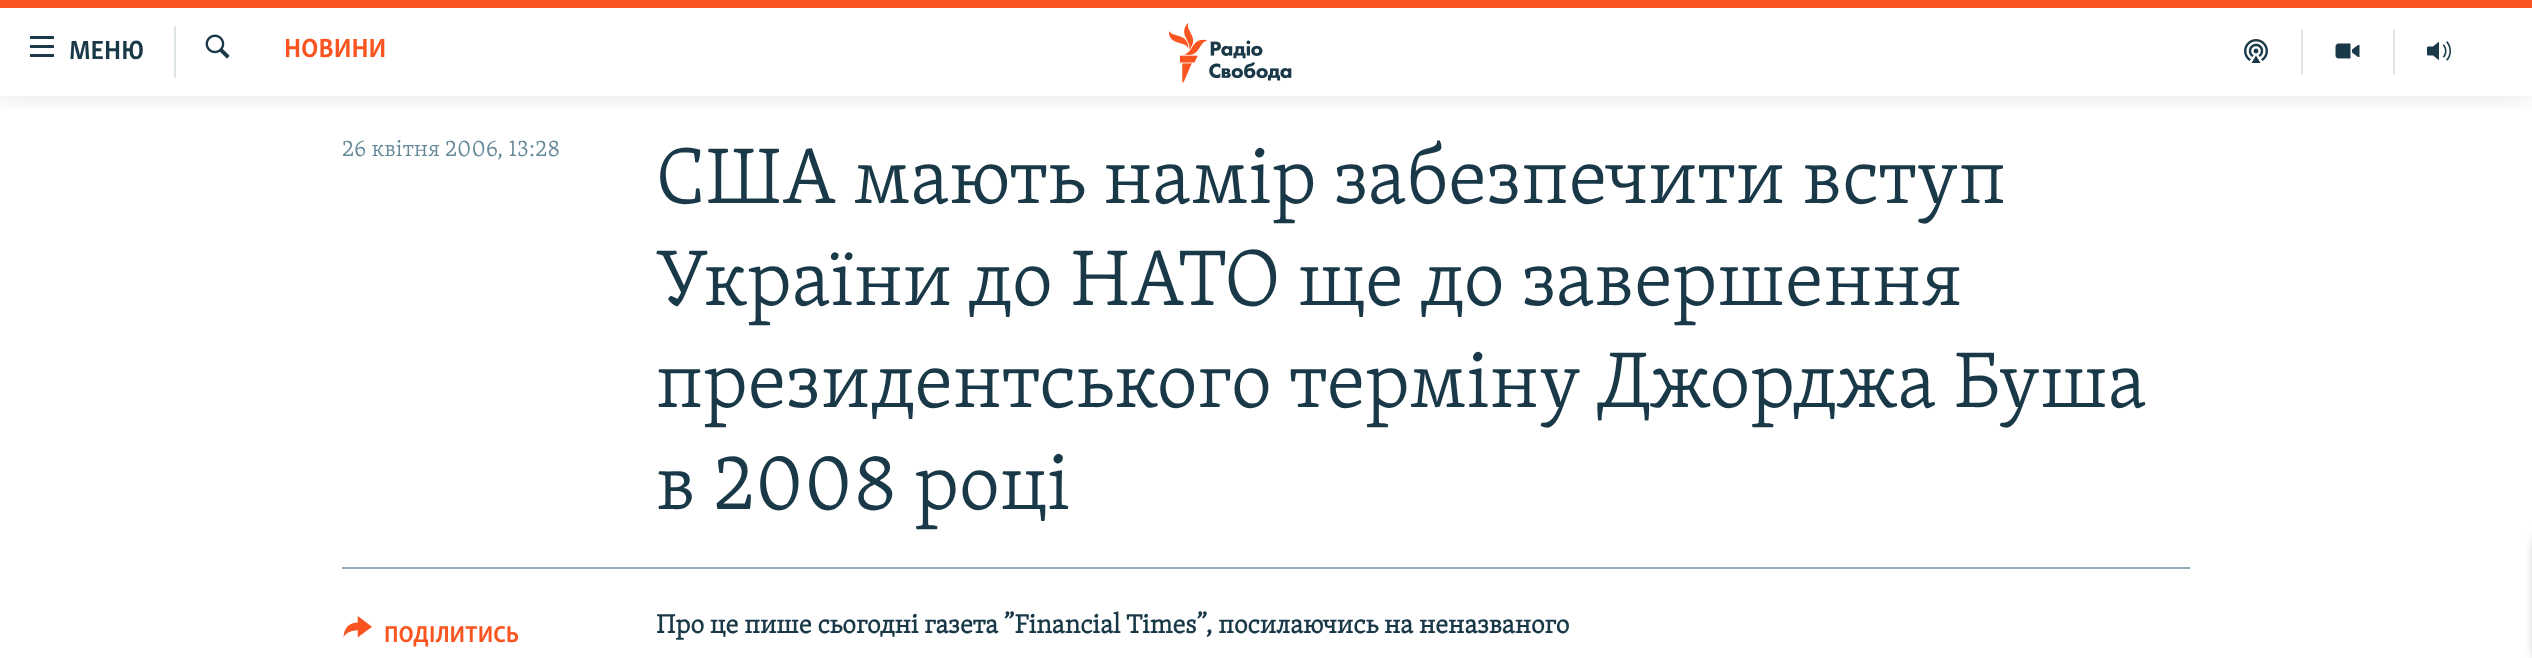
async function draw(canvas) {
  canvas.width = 2532;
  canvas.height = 658;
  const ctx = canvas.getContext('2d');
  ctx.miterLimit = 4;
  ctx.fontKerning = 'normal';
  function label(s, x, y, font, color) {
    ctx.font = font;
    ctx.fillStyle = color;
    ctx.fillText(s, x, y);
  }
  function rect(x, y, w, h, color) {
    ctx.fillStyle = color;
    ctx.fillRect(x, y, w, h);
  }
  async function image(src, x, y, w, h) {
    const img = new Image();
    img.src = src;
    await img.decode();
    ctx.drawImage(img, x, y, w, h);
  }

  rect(0, 0, 2532, 658, '#fff');
  ctx.save();
  ctx.beginPath();
  ctx.rect(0, 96, 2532, 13);
  ctx.clip();
  ctx.fillStyle = '#0000001a';
  ctx.filter = 'blur(15px)';
  ctx.beginPath();
  ctx.rect(0, 0, 2532, 96);
  ctx.fill();
  ctx.filter = 'none';
  ctx.restore();
  rect(0, 0, 2532, 8, '#fa5420');
  await image('assets/img1.png', 30, 36, 24, 21);
  label('МЕНЮ', 69, 59, 'bold 27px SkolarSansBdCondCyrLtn', '#1a3948');
  rect(174, 26, 2, 52, '#dce4e8');
  await image('assets/img2.png', 205, 34, 25, 25);
  label('НОВИНИ', 284, 57, 'bold 27px SkolarSansBdCondCyrLtn', '#fa5420');
  await image('assets/img3.png', 1169, 23, 123, 60);
  rect(2301, 30, 2, 44, '#dce4e8');
  await image('assets/img4.png', 2244, 39, 24, 24);
  rect(2393, 30, 2, 44, '#dce4e8');
  await image('assets/img5.png', 2335, 43, 25, 16);
  await image('assets/img6.png', 2427, 41, 24, 20);
  label('26 квітня 2006, 13:28', 342, 156, '300 23.6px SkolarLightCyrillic', '#678a9b');
  label('США мають намір забезпечити вступ', 656, 203, '300 81px SkolarLightCyrillic', '#1a3948');
  label('України до НАТО ще до завершення', 656, 305, '300 81px SkolarLightCyrillic', '#1a3948');
  label('президентського терміну Джорджа Буша', 656, 407, '300 81px SkolarLightCyrillic', '#1a3948');
  label('в 2008 році', 656, 509, '300 81px SkolarLightCyrillic', '#1a3948');
  rect(342, 567, 1848, 2, '#95adb9');
  await image('assets/img7.png', 343, 616, 29, 22);
  label('ПОДІЛИТИСЬ', 384, 642, 'bold 23.6px SkolarSansBdCondCyrLtn', '#fa5420');
  label('Про це пише сьогодні газета ”Financial Times”, посилаючись на неназваного', 656, 633, 'bold 27px SkolarLightCyrillic', '#1a3948');
  ctx.fillStyle = '#000000d9';
  ctx.filter = 'blur(7.5px)';
  ctx.beginPath();
  ctx.roundRect(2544, 537, 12, 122, 1.5);
  ctx.fill();
  ctx.filter = 'none';
  ctx.filter = 'blur(7.5px)';
  ctx.beginPath();
  ctx.roundRect(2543, 537, 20, 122, 8);
  ctx.fill();
  ctx.filter = 'none';
}

draw(document.querySelector('canvas'));
